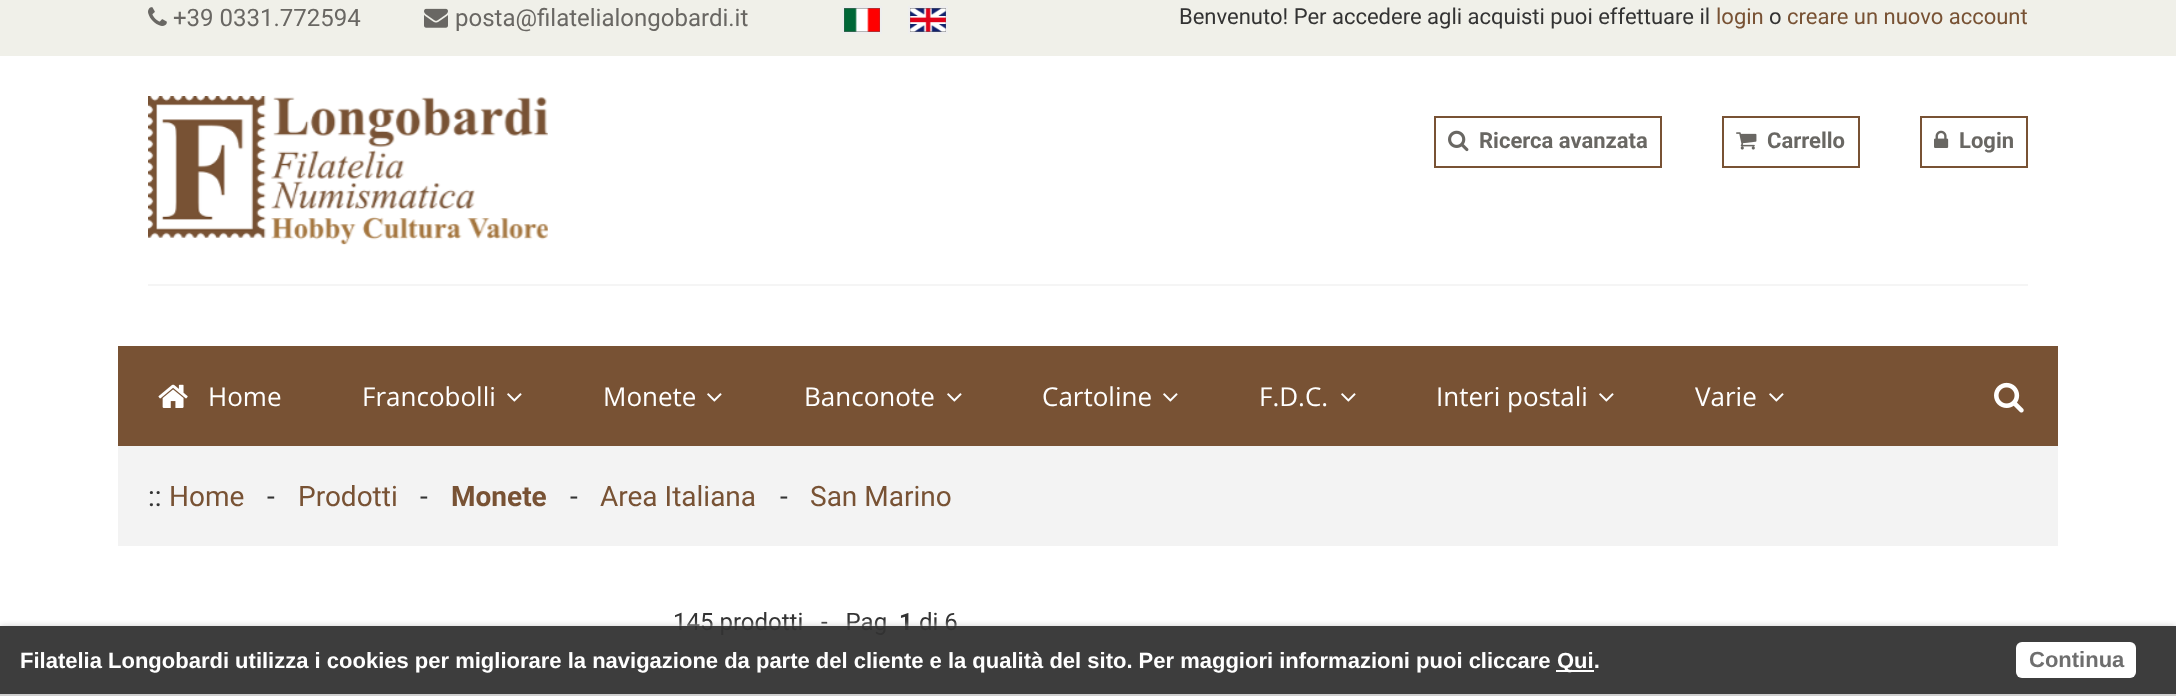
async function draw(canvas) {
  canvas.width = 2176;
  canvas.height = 696;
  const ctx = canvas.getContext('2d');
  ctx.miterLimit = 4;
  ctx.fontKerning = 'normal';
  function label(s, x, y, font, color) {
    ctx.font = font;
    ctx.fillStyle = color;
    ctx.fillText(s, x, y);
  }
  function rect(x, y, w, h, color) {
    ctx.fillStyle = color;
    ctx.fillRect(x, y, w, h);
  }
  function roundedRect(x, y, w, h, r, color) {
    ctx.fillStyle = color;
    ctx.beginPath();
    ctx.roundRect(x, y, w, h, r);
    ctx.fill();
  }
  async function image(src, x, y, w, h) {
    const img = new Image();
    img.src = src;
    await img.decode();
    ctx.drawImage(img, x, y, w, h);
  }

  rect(0, 0, 2176, 696, '#fff');
  rect(0, 0, 2176, 56, '#f0f0e9');
  await image('assets/img1.png', 148, 7, 19, 19);
  label('+39 0331.772594', 173, 26, '24px Roboto', '#696763');
  await image('assets/img2.png', 424, 8, 24, 20);
  label('posta@filatelialongobardi.it', 455, 26, '24px Roboto', '#696763');
  ctx.strokeStyle = '#eee';
  ctx.lineWidth = 2;
  ctx.strokeRect(843, 7, 38, 26);
  await image('assets/img3.png', 844, 8, 36, 24);
  ctx.strokeRect(909, 7, 38, 26);
  await image('assets/img4.png', 910, 8, 36, 24);
  label('Benvenuto! Per accedere agli acquisti puoi effettuare il', 1179, 24, '22px Roboto', '#333');
  label('login', 1716, 24, '22px Roboto', '#785234');
  label('o', 1769, 24, '22px Roboto', '#333');
  label('creare un nuovo account', 1787, 24, '22px Roboto', '#785234');
  rect(148, 284, 1880, 2, '#f5f5f5');
  await image('assets/img5.png', 148, 96, 400, 149);
  ctx.strokeStyle = '#785234';
  ctx.strokeRect(1435, 117, 226, 50);
  await image('assets/img6.png', 1448, 130, 21, 22);
  label('Ricerca avanzata', 1479, 148, 'bold 22px Roboto', '#696763');
  ctx.strokeRect(1723, 117, 136, 50);
  await image('assets/img7.png', 1736, 132, 21, 18);
  label('Carrello', 1767, 148, 'bold 22px Roboto', '#696763');
  ctx.strokeRect(1921, 117, 106, 50);
  await image('assets/img8.png', 1934, 130, 15, 18);
  label('Login', 1959, 148, 'bold 22px Roboto', '#696763');
  rect(118, 346, 1940, 100, '#785234');
  await image('assets/img9.png', 158, 384, 30, 24);
  label('Home', 208, 406, '26px Open Sans', '#fff');
  label('Francobolli', 362, 406, '26px Open Sans', '#fff');
  await image('assets/img10.png', 507, 393, 15, 9);
  label('Monete', 603, 406, '26px Open Sans', '#fff');
  await image('assets/img10.png', 707, 393, 15, 9);
  label('Banconote', 804, 406, '26px Open Sans', '#fff');
  await image('assets/img10.png', 947, 393, 15, 9);
  label('Cartoline', 1042, 406, '26px Open Sans', '#fff');
  await image('assets/img10.png', 1163, 393, 15, 9);
  label('F.D.C.', 1259, 406, '26px Open Sans', '#fff');
  await image('assets/img10.png', 1341, 393, 15, 9);
  label('Interi postali', 1436, 406, '26px Open Sans', '#fff');
  await image('assets/img10.png', 1599, 393, 15, 9);
  label('Varie', 1695, 406, '26px Open Sans', '#fff');
  await image('assets/img10.png', 1769, 393, 15, 9);
  await image('assets/img11.png', 1994, 382, 30, 31);
  rect(118, 446, 1940, 100, '#f3f3f3');
  label('::', 148, 506, '28px Roboto', '#333');
  label('Home', 169, 506, '28px Roboto', '#785234');
  label('-', 267, 506, '28px Roboto', '#333');
  label('Prodotti', 298, 506, '28px Roboto', '#785234');
  label('-', 420, 506, '28px Roboto', '#333');
  label('Monete', 451, 506, 'bold 28px Roboto', '#785234');
  label('-', 570, 506, '28px Roboto', '#333');
  label('Area Italiana', 600, 506, '28px Roboto', '#785234');
  label('-', 780, 506, '28px Roboto', '#333');
  label('San Marino', 810, 506, '28px Roboto', '#785234');
  rect(148, 626, 426, 4, '#f5f5f5');
  rect(230, 626, 260, 4, '#fff');
  label('145 prodotti   -   Pag', 673, 630, '24px Roboto', '#333');
  label('1', 899, 630, 'bold 24px Roboto', '#333');
  label('di 6', 919, 630, '24px Roboto', '#333');
  rect(998, 626, 1030, 4, '#f5f5f5');
  rect(1126, 626, 440, 4, '#fff');
  ctx.save();
  ctx.beginPath();
  ctx.rect(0, 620, 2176, 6);
  ctx.clip();
  ctx.fillStyle = '#ccccccf2';
  ctx.filter = 'blur(3px)';
  ctx.beginPath();
  ctx.rect(0, 626, 2176, 70);
  ctx.fill();
  ctx.filter = 'none';
  ctx.restore();
  rect(0, 626, 2176, 68, '#333333f2');
  rect(0, 694, 2176, 2, '#cfcfcf');
  label('Filatelia Longobardi utilizza i cookies per migliorare la navigazione da parte del cliente e la qualità del sito. Per maggiori informazioni puoi cliccare', 20, 668, 'bold 22px Liberation Sans', '#fff');
  rect(1556, 670, 38, 2, '#fff');
  label('Qui.', 1557, 668, 'bold 22px Liberation Sans', '#fff');
  roundedRect(2016, 642, 120, 36, 6, '#fff');
  label('Continua', 2029, 667, 'bold 22px Liberation Sans', '#6e6e6e');
}

draw(document.querySelector('canvas'));
